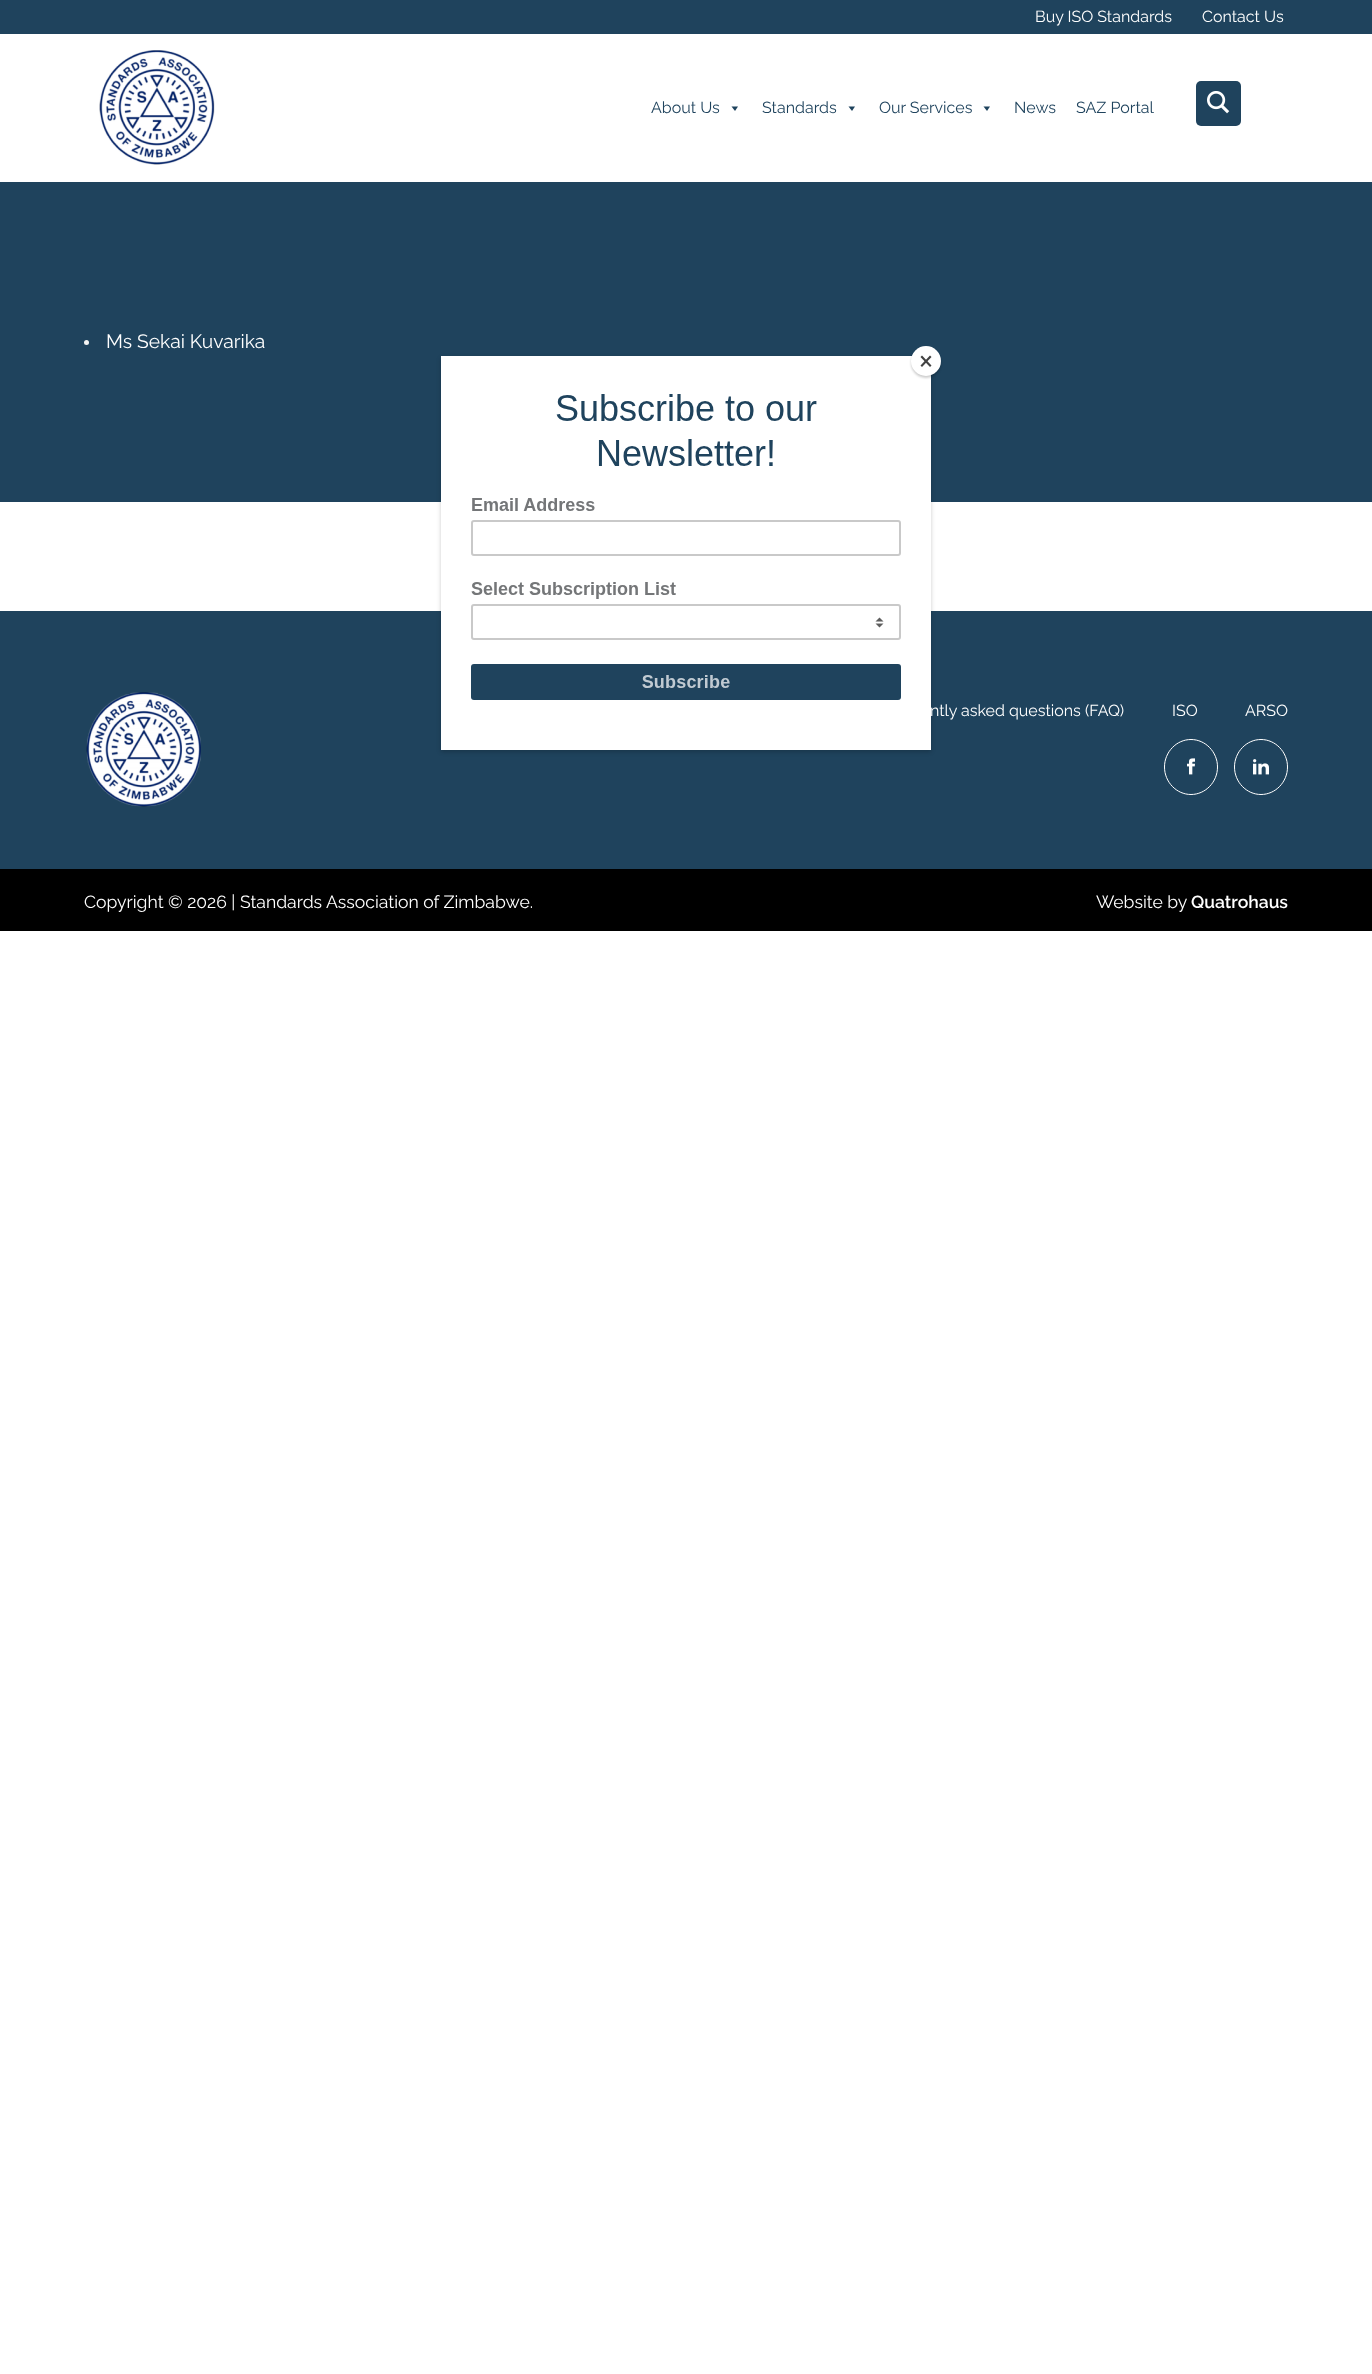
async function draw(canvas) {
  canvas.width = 1372;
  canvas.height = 2374;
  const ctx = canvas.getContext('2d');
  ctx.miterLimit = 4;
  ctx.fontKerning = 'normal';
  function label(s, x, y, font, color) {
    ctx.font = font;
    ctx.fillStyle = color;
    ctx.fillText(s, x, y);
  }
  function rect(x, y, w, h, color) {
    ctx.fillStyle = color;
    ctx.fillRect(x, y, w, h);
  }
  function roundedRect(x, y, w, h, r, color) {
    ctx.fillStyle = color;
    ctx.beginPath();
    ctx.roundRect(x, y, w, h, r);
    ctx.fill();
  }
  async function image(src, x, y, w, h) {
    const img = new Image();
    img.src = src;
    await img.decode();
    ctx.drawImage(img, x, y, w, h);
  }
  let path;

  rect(0, 0, 1372, 2374, '#fff');
  rect(0, 0, 1372, 34, '#1f435d');
  label('Buy ISO Standards', 1035, 22, '16px Raleway', '#fff');
  label('Contact Us', 1202, 22, '16px Raleway', '#fff');
  await image('assets/img1.png', 99, 50, 116, 115);
  label('About Us', 651, 113, '16px Raleway', '#1f435d');
  path = new Path2D('M738 106.5L735 111L731.5 106.5Z');
  ctx.fill(path);
  label('Standards', 762, 113, '16px Raleway', '#1f435d');
  path = new Path2D('M855 106.5L852 111L848.5 106.5Z');
  ctx.fill(path);
  label('Our Services', 879, 113, '16px Raleway', '#1f435d');
  path = new Path2D('M990 106.5L987 111L983.5 106.5Z');
  ctx.fill(path);
  label('News', 1014, 113, '16px Raleway', '#1f435d');
  label('SAZ Portal', 1076, 113, '16px Raleway', '#1f435d');
  roundedRect(1196, 81, 45, 45, 5, '#1f435d');
  await image('assets/img2.png', 1207, 91, 23, 23);
  rect(0, 182, 1372, 320, '#1f435d');
  ctx.fillStyle = '#f4f4f4';
  ctx.beginPath();
  ctx.arc(86.5, 342.5, 2.5, 0, 2 * Math.PI);
  ctx.fill();
  label('Ms Sekai Kuvarika', 106, 348, '19.25px Raleway', '#fff');
  rect(0, 611, 1372, 258, '#1f435d');
  ctx.fillStyle = '#00000033';
  ctx.filter = 'blur(2px)';
  ctx.beginPath();
  ctx.rect(441, 358, 490, 394);
  ctx.fill();
  ctx.filter = 'none';
  label('ntly asked questions (FAQ)', 930, 716, '16px Raleway', '#fff');
  await image('assets/img3.png', 441, 356, 490, 394);
  ctx.fillStyle = '#00000033';
  ctx.filter = 'blur(1px)';
  ctx.beginPath();
  ctx.roundRect(911, 348, 30, 30, 15);
  ctx.fill();
  ctx.filter = 'none';
  ctx.fillStyle = '#fff';
  ctx.beginPath();
  ctx.arc(926, 361, 15, 0, 2 * Math.PI);
  ctx.fill();
  ctx.fillStyle = '#414141';
  path = new Path2D('M930 355.5L931.5 357L922 367L920.5 365.5Z');
  ctx.fill(path);
  path = new Path2D('M920.5 357L922 355.5L931.5 365.5L930 367Z');
  ctx.fill(path);
  await image('assets/img4.png', 86, 692, 115, 115);
  label('ISO', 1172, 716, '16px Raleway', '#fff');
  label('ARSO', 1245, 716, '16px Raleway', '#fff');
  path = new Path2D('M1191 739.5C1205.5 739.5 1217.5 752 1217.5 767C1217.5 782 1205.5 794.5 1191 794.5C1176.5 794.5 1164.5 782 1164.5 767C1164.5 752 1176.5 739.5 1191 739.5Z');
  ctx.strokeStyle = '#fff';
  ctx.stroke(path);
  await image('assets/img5.png', 1187, 758, 8, 17);
  path = new Path2D('M1261 739.5C1275.5 739.5 1287.5 752 1287.5 767C1287.5 782 1275.5 794.5 1261 794.5C1246.5 794.5 1234.5 782 1234.5 767C1234.5 752 1246.5 739.5 1261 739.5Z');
  ctx.stroke(path);
  await image('assets/img6.png', 1253, 759, 16, 16);
  rect(0, 869, 1372, 62, '#000');
  label('Copyright © 2026 | Standards Association of Zimbabwe.', 84, 908, '17.6px Raleway', '#fff');
  label('Website by', 1096, 908, '17.6px Raleway', '#fff');
  label('Quatrohaus', 1191, 908, '600 17.6px Raleway', '#fff');
}

draw(document.querySelector('canvas'));
